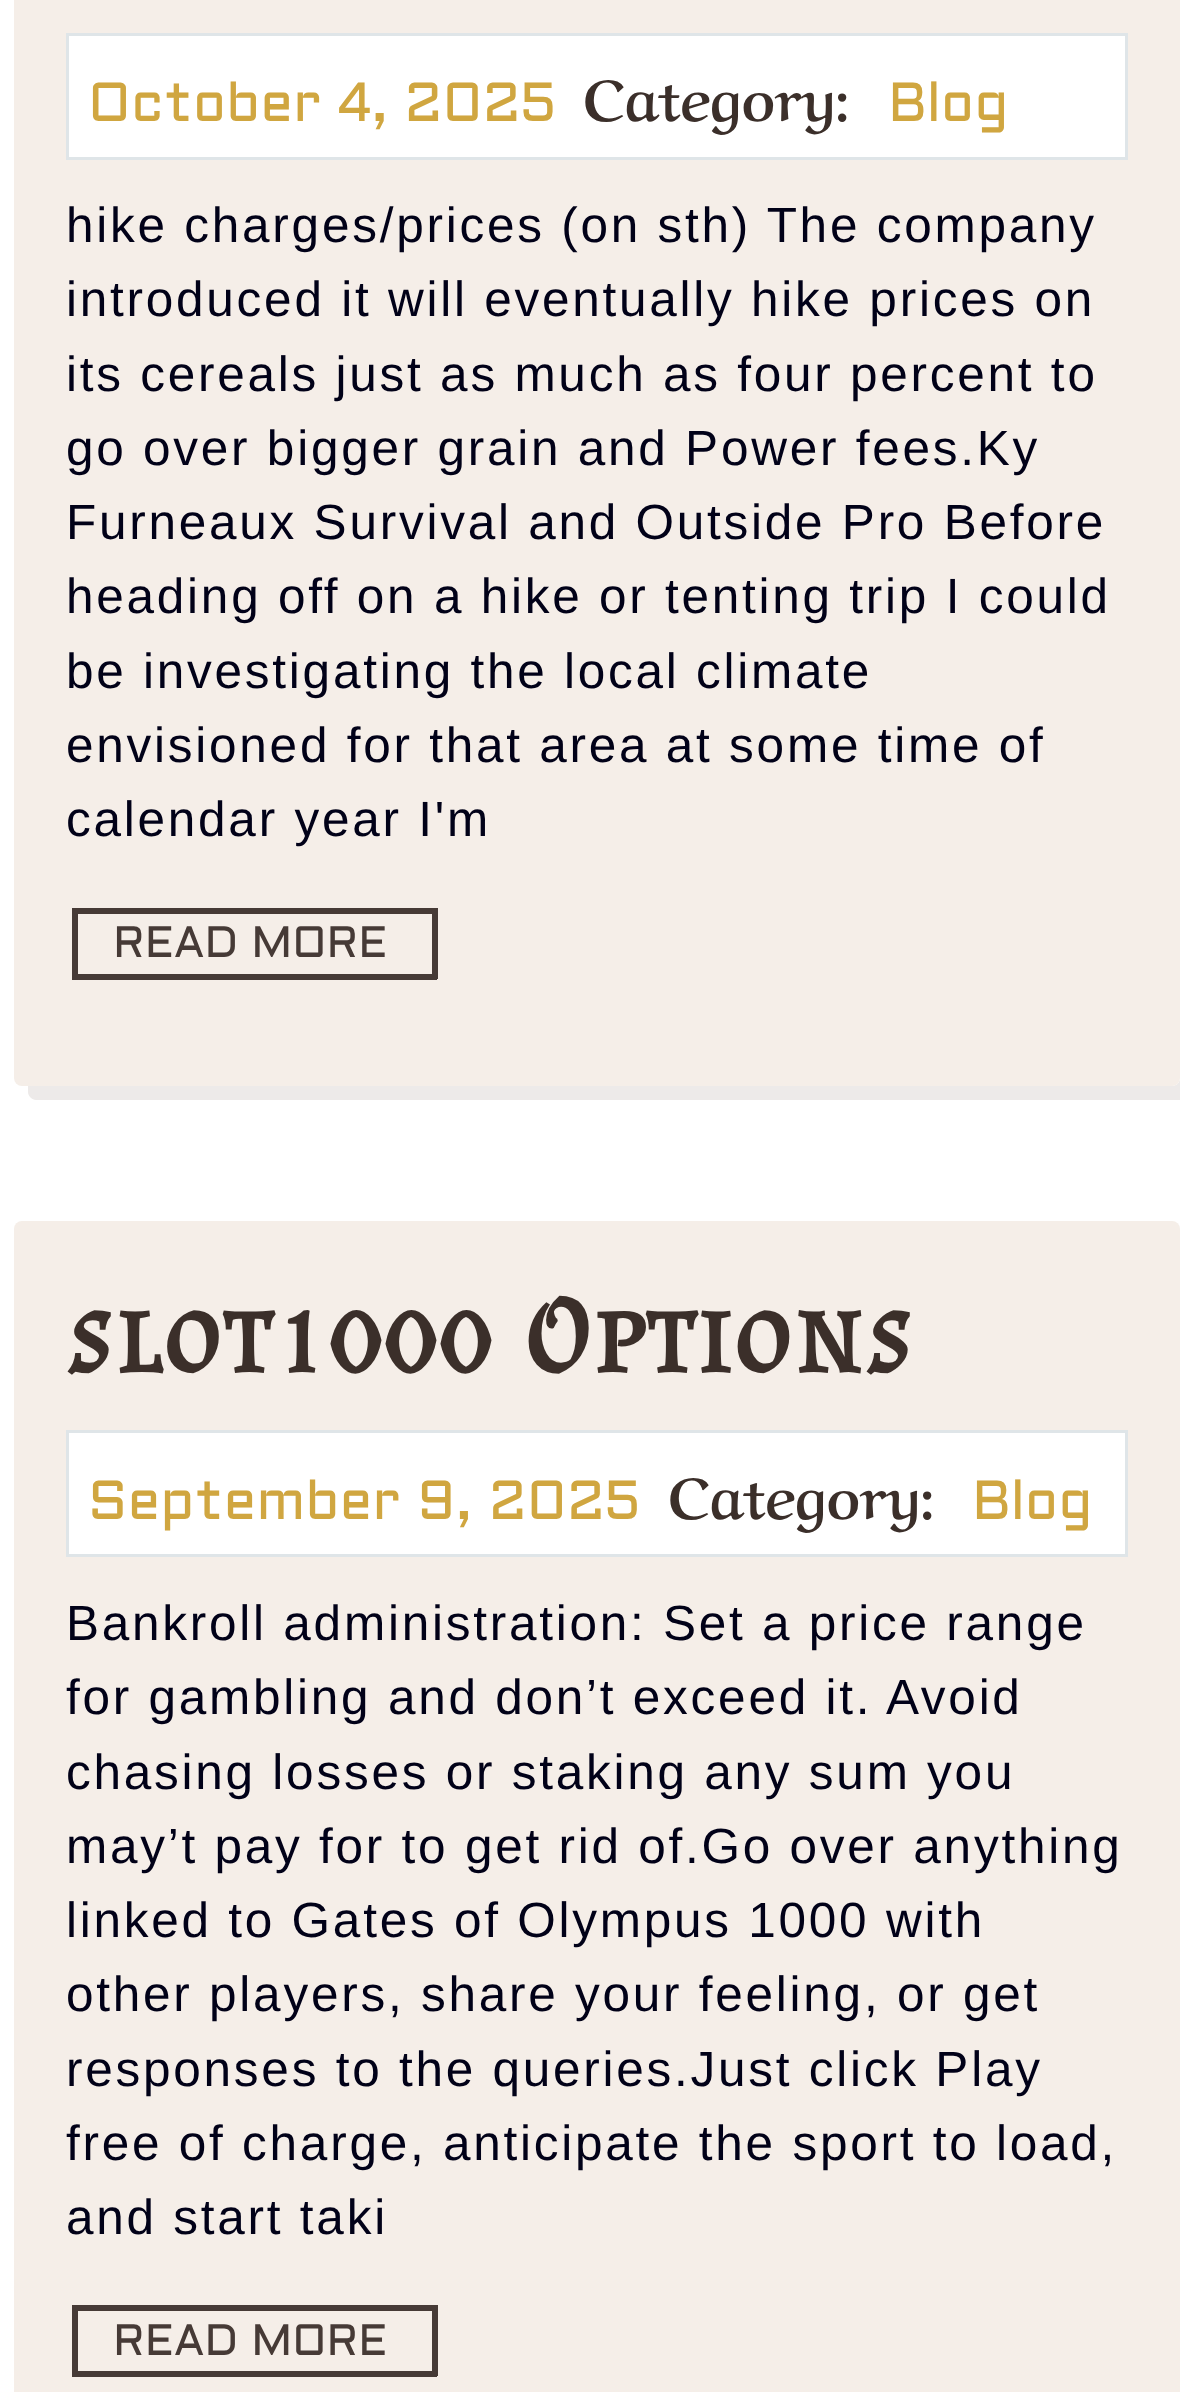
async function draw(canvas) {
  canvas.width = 1191;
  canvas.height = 2392;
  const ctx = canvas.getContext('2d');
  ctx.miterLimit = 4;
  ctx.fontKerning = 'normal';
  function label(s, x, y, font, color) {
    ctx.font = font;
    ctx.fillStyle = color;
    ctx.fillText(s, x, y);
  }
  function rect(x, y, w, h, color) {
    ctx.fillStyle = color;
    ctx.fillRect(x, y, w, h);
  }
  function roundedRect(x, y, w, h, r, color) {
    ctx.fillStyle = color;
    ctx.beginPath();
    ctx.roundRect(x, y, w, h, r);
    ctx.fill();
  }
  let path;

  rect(0, 0, 1191, 2392, '#fff');
  ctx.save();
  ctx.beginPath();
  ctx.rect(14, 0, 1166, 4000);
  ctx.clip();
  ctx.fillStyle = '#edeae9';
  path = new Path2D('M28 1086V1092C28 1096 32 1100 36 1100H1186C1190 1100 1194 1096 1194 1092V-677C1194-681 1190-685 1186-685H1180V1078C1180 1083 1176 1086 1172 1086Z');
  ctx.fill(path);
  ctx.restore();
  roundedRect(14, -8, 1166, 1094, 8, '#f5eee8');
  ctx.fillStyle = '#fff';
  ctx.beginPath();
  ctx.rect(67.5, 34.5, 1059, 124);
  ctx.fill();
  ctx.strokeStyle = '#dfe5e8';
  ctx.lineWidth = 3;
  ctx.stroke();
  label('October 4, 2025', 88, 121, '55px Aldrich', '#d0a640');
  label('Category:', 583, 121, 'bold 57.75px Aref Ruqaa', '#3b2f2a');
  label('Blog', 888, 121, '55px Aldrich', '#d0a640');
  ctx.letterSpacing = '2.75px';
  label('hike charges/prices (on sth) The company', 66, 242, '49.5px Arimo', '#010118');
  label('introduced it will eventually hike prices on', 66, 316, '49.5px Arimo', '#010118');
  label('its cereals just as much as four percent to', 66, 391, '49.5px Arimo', '#010118');
  label('go over bigger grain and Power fees.Ky', 66, 465, '49.5px Arimo', '#010118');
  label('Furneaux Survival and Outside Pro Before', 66, 539, '49.5px Arimo', '#010118');
  label('heading off on a hike or tenting trip I could', 66, 613, '49.5px Arimo', '#010118');
  label('be investigating the local climate', 66, 688, '49.5px Arimo', '#010118');
  label('envisioned for that area at some time of', 66, 762, '49.5px Arimo', '#010118');
  label('calendar year I\'m', 66, 836, '49.5px Arimo', '#010118');
  ctx.letterSpacing = '0px';
  label('READ MORE', 113, 957, '44px Aldrich', '#463a36');
  rect(72, 908, 365, 6, '#463a36');
  rect(72, 974, 316, 6, '#463a36');
  rect(72, 908, 6, 71, '#463a36');
  rect(432, 908, 6, 71, '#463a36');
  rect(388, 974, 49, 6, '#463a36');
  roundedRect(14, 1221, 1166, 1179, 8, '#f5eee8');
  ctx.letterSpacing = '2.75px';
  ctx.wordSpacing = '8px';
  label('slot1000 Options', 66, 1372, 'bold 110px Almendra SC', '#3b2f2a');
  ctx.fillStyle = '#fff';
  ctx.beginPath();
  ctx.rect(67.5, 1431.5, 1059, 124);
  ctx.fill();
  ctx.stroke();
  ctx.letterSpacing = '0px';
  ctx.wordSpacing = '0px';
  label('September 9, 2025', 88, 1519, '55px Aldrich', '#d0a640');
  label('Category:', 668, 1519, 'bold 57.75px Aref Ruqaa', '#3b2f2a');
  label('Blog', 972, 1519, '55px Aldrich', '#d0a640');
  ctx.letterSpacing = '2.75px';
  label('Bankroll administration: Set a price range', 66, 1640, '49.5px Arimo', '#010118');
  label('for gambling and don’t exceed it. Avoid', 66, 1714, '49.5px Arimo', '#010118');
  label('chasing losses or staking any sum you', 66, 1789, '49.5px Arimo', '#010118');
  label('may’t pay for to get rid of.Go over anything', 66, 1863, '49.5px Arimo', '#010118');
  label('linked to Gates of Olympus 1000 with', 66, 1937, '49.5px Arimo', '#010118');
  label('other players, share your feeling, or get', 66, 2011, '49.5px Arimo', '#010118');
  label('responses to the queries.Just click Play', 66, 2086, '49.5px Arimo', '#010118');
  label('free of charge, anticipate the sport to load,', 66, 2160, '49.5px Arimo', '#010118');
  label('and start taki', 66, 2234, '49.5px Arimo', '#010118');
  ctx.letterSpacing = '0px';
  label('READ MORE', 113, 2355, '44px Aldrich', '#463a36');
  rect(72, 2305, 365, 6, '#463a36');
  rect(72, 2371, 316, 6, '#463a36');
  rect(72, 2305, 6, 71, '#463a36');
  rect(432, 2305, 6, 71, '#463a36');
  rect(388, 2371, 49, 6, '#463a36');
}

draw(document.querySelector('canvas'));
